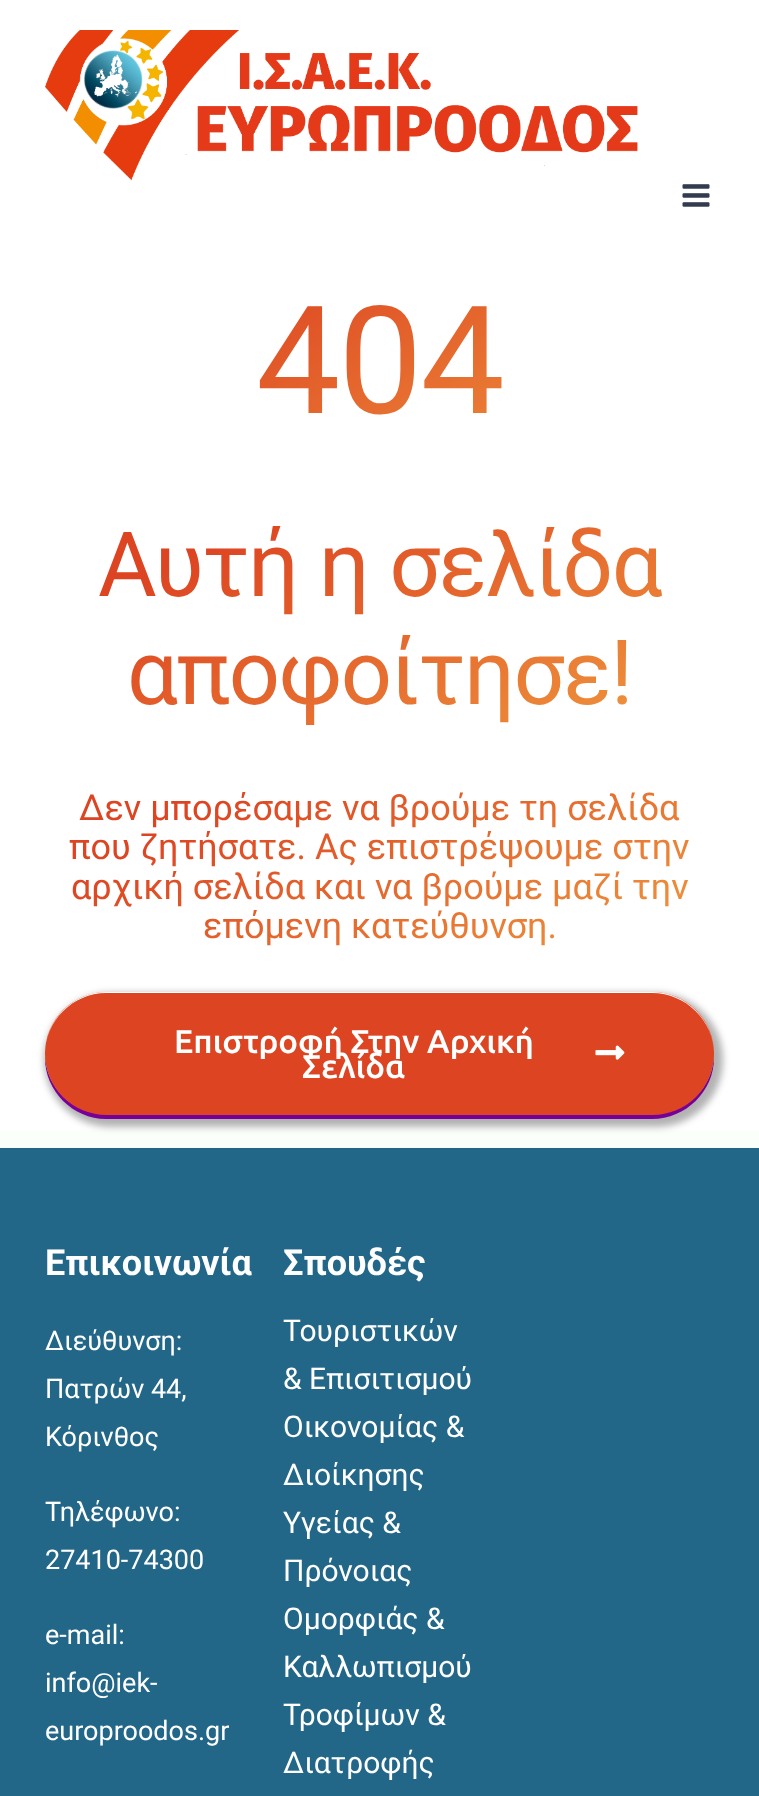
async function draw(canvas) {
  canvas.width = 759;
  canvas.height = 1796;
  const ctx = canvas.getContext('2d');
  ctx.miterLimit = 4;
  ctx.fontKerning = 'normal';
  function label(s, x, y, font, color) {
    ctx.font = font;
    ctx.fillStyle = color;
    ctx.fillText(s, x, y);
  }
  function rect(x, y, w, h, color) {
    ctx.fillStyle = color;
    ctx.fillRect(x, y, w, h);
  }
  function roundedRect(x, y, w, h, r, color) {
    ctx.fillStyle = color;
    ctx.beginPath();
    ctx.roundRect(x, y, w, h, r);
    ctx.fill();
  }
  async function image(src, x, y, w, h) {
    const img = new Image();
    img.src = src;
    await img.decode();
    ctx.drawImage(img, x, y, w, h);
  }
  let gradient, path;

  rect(0, 0, 759, 1796, '#fff');
  await image('assets/img1.png', 45, 30, 593, 151);
  await image('assets/img2.png', 682, 184, 28, 23);
  ctx.letterSpacing = '-2px';
  ctx.font = '150px Roboto';
  gradient = ctx.createLinearGradient(257, 150, 502, 574);
  gradient.addColorStop(0.2, '#d42');
  gradient.addColorStop(1, '#f09a3e');
  ctx.fillStyle = gradient;
  ctx.fillText('404', 256, 413);
  ctx.letterSpacing = '-1.4px';
  ctx.font = '90px Roboto';
  gradient = ctx.createLinearGradient(249, 394, 510, 846);
  gradient.addColorStop(0.2, '#d42');
  gradient.addColorStop(1, '#f09a3e');
  ctx.fillStyle = gradient;
  ctx.fillText('Αυτή η σελίδα', 98, 596);
  ctx.fillText('αποφοίτησε!', 127, 704);
  ctx.letterSpacing = '0px';
  ctx.font = '36px Roboto';
  gradient = ctx.createLinearGradient(262, 663, 497, 1071);
  gradient.addColorStop(0.2, '#d42');
  gradient.addColorStop(1, '#f09a3e');
  ctx.fillStyle = gradient;
  ctx.fillText('Δεν μπορέσαμε να βρούμε τη σελίδα', 79, 820);
  ctx.fillText('που ζητήσατε. Ας επιστρέψουμε στην', 69, 859);
  ctx.fillText('αρχική σελίδα και να βρούμε μαζί την', 71, 899);
  ctx.fillText('επόμενη κατεύθυνση.', 203, 938);
  rect(0, 1130, 759, 18, '#fbfff9');
  ctx.fillStyle = '#0000004d';
  ctx.filter = 'blur(3.5px)';
  ctx.beginPath();
  ctx.roundRect(44, 993, 679, 134, 67);
  ctx.fill();
  ctx.filter = 'none';
  ctx.fillStyle = '#709';
  path = new Path2D('M45 1055V1058C45 1091 73 1119 106 1119H652C686 1119 714 1091 714 1058V1055C713 1088 686 1114 652 1114H106C73 1114 46 1088 45 1055Z');
  ctx.fill(path);
  roundedRect(45, 992, 669, 123, 61.5, '#d42');
  ctx.fillStyle = '#fff';
  path = new Path2D('M106 993H652C686 993 714 1021 714 1054C714 1020 686 992 652 992H106C73 992 45 1020 45 1054C45 1021 73 993 106 993Z');
  ctx.fill(path);
  label('Επιστροφή Στην Αρχική', 174, 1053, '500 33px Ubuntu', '#fff');
  label('Σελίδα', 302, 1078, '500 33px Ubuntu', '#fff');
  await image('assets/img3.png', 595, 1045, 30, 15);
  rect(0, 1148, 759, 648, '#268');
  label('Επικοινωνία', 45, 1275, 'bold 36px Roboto', '#fff');
  label('Διεύθυνση:', 45, 1350, '27px Roboto', '#fff');
  label('Πατρών 44,', 45, 1398, '27px Roboto', '#fff');
  label('Κόρινθος', 45, 1446, '27px Roboto', '#fff');
  label('Τηλέφωνο:', 45, 1521, '27px Roboto', '#fff');
  label('27410-74300', 45, 1569, '27px Roboto', '#fff');
  label('e-mail:', 45, 1644, '27px Roboto', '#fff');
  label('info@iek-', 45, 1692, '27px Roboto', '#fff');
  label('europroodos.gr', 45, 1740, '27px Roboto', '#fff');
  label('Σπουδές', 283, 1275, 'bold 36px Roboto', '#fff');
  label('Τουριστικών', 283, 1341, '30px Roboto', '#fff');
  label('& Επισιτισμού', 283, 1389, '30px Roboto', '#fff');
  label('Οικονομίας &', 283, 1437, '30px Roboto', '#fff');
  label('Διοίκησης', 283, 1485, '30px Roboto', '#fff');
  label('Υγείας &', 283, 1533, '30px Roboto', '#fff');
  label('Πρόνοιας', 283, 1581, '30px Roboto', '#fff');
  label('Ομορφιάς &', 283, 1629, '30px Roboto', '#fff');
  label('Καλλωπισμού', 283, 1677, '30px Roboto', '#fff');
  label('Τροφίμων &', 283, 1725, '30px Roboto', '#fff');
  label('Διατροφής', 283, 1773, '30px Roboto', '#fff');
}

draw(document.querySelector('canvas'));
